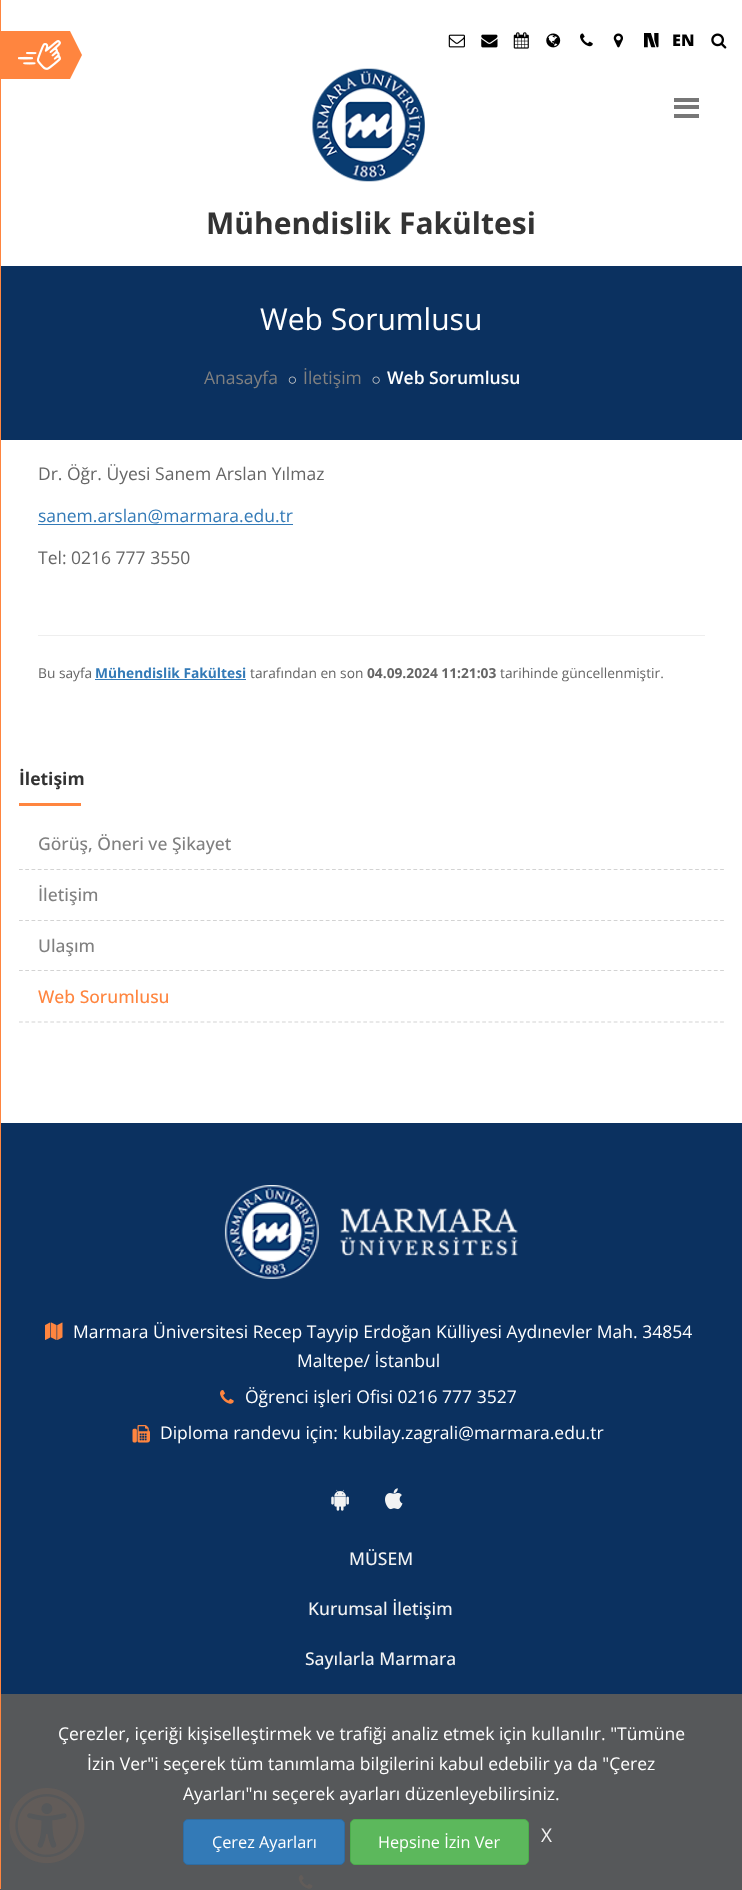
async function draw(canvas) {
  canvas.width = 742;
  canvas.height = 1890;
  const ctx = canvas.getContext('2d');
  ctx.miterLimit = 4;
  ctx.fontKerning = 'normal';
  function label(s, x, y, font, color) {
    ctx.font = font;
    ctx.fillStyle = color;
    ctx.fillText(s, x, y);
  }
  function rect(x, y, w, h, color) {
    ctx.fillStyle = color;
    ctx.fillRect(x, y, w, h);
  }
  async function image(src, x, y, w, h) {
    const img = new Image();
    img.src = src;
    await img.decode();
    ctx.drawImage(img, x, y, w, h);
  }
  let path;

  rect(0, 0, 742, 1890, '#fff');
  rect(0, 1694, 742, 196, '#56585a');
  rect(0, 0, 1, 1889, '#ff853f');
  rect(1, 31, 69, 48, '#ff853f');
  await image('assets/img1.png', 18, 40, 43, 30);
  path = new Path2D('M70 79V31L82 55Z');
  ctx.fill(path);
  await image('assets/img2.png', 448, 34, 17, 14);
  await image('assets/img3.png', 481, 34, 17, 14);
  await image('assets/img4.png', 513, 32, 16, 17);
  await image('assets/img5.png', 546, 33, 15, 15);
  await image('assets/img6.png', 580, 33, 13, 14);
  await image('assets/img7.png', 613, 33, 10, 15);
  await image('assets/img8.png', 644, 33, 15, 15);
  label('EN', 672, 46, '800 16.25px Open Sans', '#000');
  await image('assets/img9.png', 711, 33, 16, 16);
  rect(674, 98, 25, 4, '#777');
  rect(674, 105, 25, 4, '#777');
  rect(674, 114, 25, 4, '#777');
  await image('assets/img10.png', 312, 68, 113, 114);
  label('Mühendislik Fakültesi', 206, 234, 'bold 30px Open Sans', '#333');
  rect(1, 266, 741, 174, '#0b3160');
  label('Web Sorumlusu', 260, 330, '30px Open Sans', '#fff');
  label('Anasayfa', 204, 384, '17.5px Open Sans', '#808080');
  await image('assets/img11.png', 288, 376, 8, 8);
  label('İletişim', 303, 384, '17.5px Open Sans', '#808080');
  await image('assets/img12.png', 372, 376, 8, 8);
  label('Web Sorumlusu', 387, 384, '600 17.5px Open Sans', '#fff');
  label('Dr. Öğr. Üyesi Sanem Arslan Yılmaz', 38, 480, '17.5px Open Sans', '#666');
  label('sanem.arslan@marmara.edu.tr', 38, 522, '17.5px Open Sans', '#337ab7');
  rect(38, 524, 255, 1, '#337ab7');
  label('Tel: 0216 777 3550', 38, 564, '17.5px Open Sans', '#666');
  rect(38, 635, 667, 1, '#eee');
  label('Bu sayfa', 38, 678, '13.75px Open Sans', '#666');
  label('Mühendislik Fakültesi', 95, 678, 'bold 13.75px Open Sans', '#337ab7');
  rect(95, 679, 151, 1, '#337ab7');
  label('tarafından en son', 250, 678, '13.75px Open Sans', '#666');
  label('04.09.2024 11:21:03', 367, 678, 'bold 13.75px Open Sans', '#666');
  label('tarihinde güncellenmiştir.', 500, 678, '13.75px Open Sans', '#666');
  label('İletişim', 19, 785, 'bold 17.5px Open Sans', '#333');
  rect(19, 803, 62, 3, '#ff853f');
  path = new Path2D('M19 869.5H724');
  ctx.strokeStyle = '#d3d3d3';
  ctx.lineWidth = 1.2;
  ctx.setLineDash([3.75, 2.51]);
  ctx.stroke(path);
  label('Görüş, Öneri ve Şikayet', 38, 850, '500 17.5px Open Sans', '#808080');
  path = new Path2D('M19 920.5H724');
  ctx.stroke(path);
  label('İletişim', 38, 901, '500 17.5px Open Sans', '#808080');
  path = new Path2D('M19 970.5H724');
  ctx.stroke(path);
  label('Ulaşım', 38, 952, '500 17.5px Open Sans', '#808080');
  path = new Path2D('M19 1022H724');
  ctx.stroke(path);
  label('Web Sorumlusu', 38, 1003, '500 17.5px Open Sans', '#ff853f');
  rect(1, 1123, 741, 571, '#0b3160');
  await image('assets/img13.png', 224, 1185, 294, 94);
  await image('assets/img14.png', 45, 1322, 18, 18);
  label('Marmara Üniversitesi Recep Tayyip Erdoğan Külliyesi Aydınevler Mah. 34854', 73, 1338, '17.5px Open Sans', '#fff');
  label('Maltepe/ İstanbul', 297, 1367, '17.5px Open Sans', '#fff');
  await image('assets/img15.png', 220, 1390, 14, 14);
  label('Öğrenci işleri Ofisi 0216 777 3527', 245, 1403, '17.5px Open Sans', '#fff');
  await image('assets/img16.png', 132, 1425, 18, 18);
  label('Diploma randevu için: kubilay.zagrali@marmara.edu.tr', 160, 1439, '17.5px Open Sans', '#fff');
  await image('assets/img17.png', 331, 1489, 18, 22);
  await image('assets/img18.png', 385, 1488, 18, 22);
  label('MÜSEM', 349, 1565, '500 17.5px Open Sans', '#f3f3f3');
  label('Kurumsal İletişim', 308, 1615, '500 17.5px Open Sans', '#f3f3f3');
  label('Sayılarla Marmara', 305, 1665, '500 17.5px Open Sans', '#f3f3f3');
  await image('assets/img19.png', 298, 1875, 15, 14);
  await image('assets/img20.png', 9, 1788, 76, 76);
  label('Çerezler, içeriği kişiselleştirmek ve trafiği analiz etmek için kullanılır. "Tümüne', 58, 1740, '17.5px Open Sans', '#fff');
  label('İzin Ver"i seçerek tüm tanımlama bilgilerini kabul edebilir ya da "Çerez', 87, 1770, '17.5px Open Sans', '#fff');
  label('Ayarları"nı seçerek ayarları düzenleyebilirsiniz.', 183, 1800, '17.5px Open Sans', '#fff');
  ctx.fillStyle = '#337ab7';
  ctx.beginPath();
  ctx.roundRect(183.5, 1819.5, 161, 45, 4.5);
  ctx.fill();
  ctx.strokeStyle = '#2e6da4';
  ctx.lineWidth = 1;
  ctx.setLineDash([]);
  ctx.stroke();
  label('Çerez Ayarları', 212, 1848, '16.25px Open Sans', '#fff');
  ctx.fillStyle = '#5cb85c';
  ctx.beginPath();
  ctx.roundRect(350.5, 1819.5, 178, 45, 4.5);
  ctx.fill();
  ctx.strokeStyle = '#4cae4c';
  ctx.stroke();
  label('Hepsine İzin Ver', 378, 1848, '16.25px Open Sans', '#fff');
  label('X', 541, 1842, '19px Open Sans', '#f3f3f3');
}

draw(document.querySelector('canvas'));
